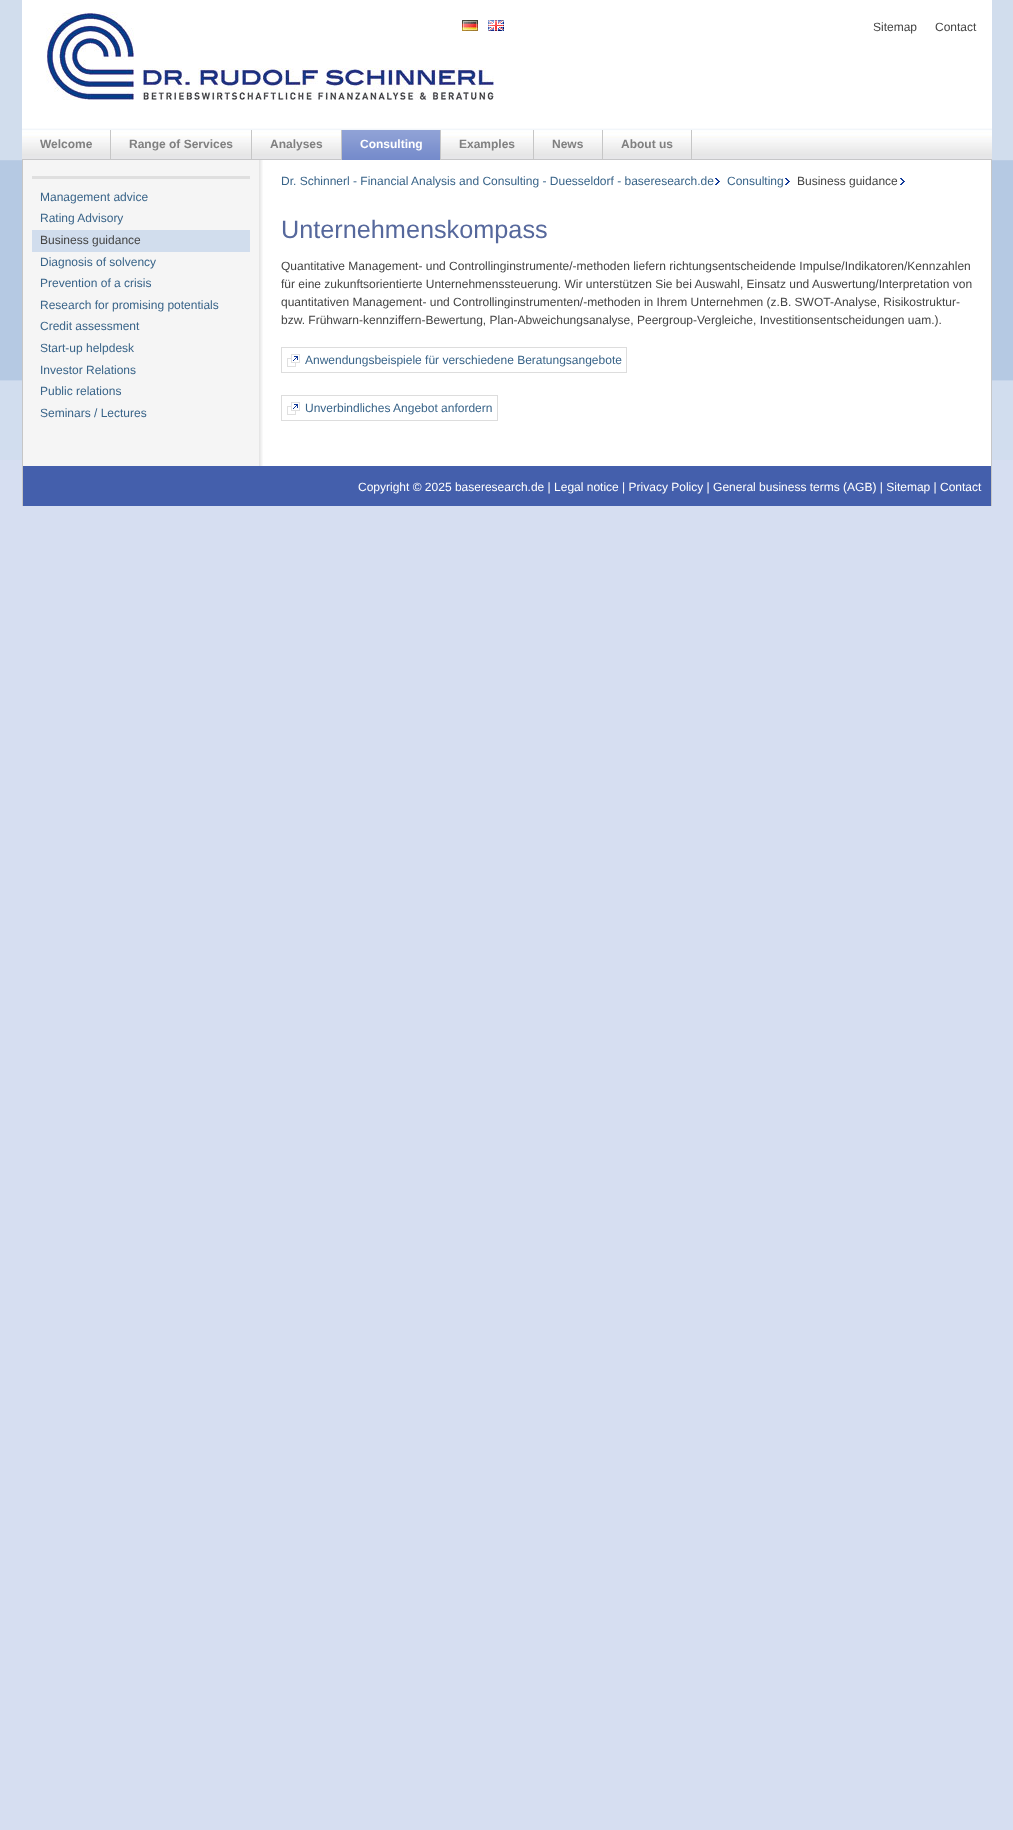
async function draw(canvas) {
  canvas.width = 1013;
  canvas.height = 1830;
  const ctx = canvas.getContext('2d');
  ctx.miterLimit = 4;
  ctx.fontKerning = 'normal';
  function label(s, x, y, font, color) {
    ctx.font = font;
    ctx.fillStyle = color;
    ctx.fillText(s, x, y);
  }
  function rect(x, y, w, h, color) {
    ctx.fillStyle = color;
    ctx.fillRect(x, y, w, h);
  }
  async function image(src, x, y, w, h) {
    const img = new Image();
    img.src = src;
    await img.decode();
    ctx.drawImage(img, x, y, w, h);
  }

  rect(0, 0, 1013, 1830, '#d6def1');
  await image('assets/img1.png', 0, 0, 1013, 460);
  await image('assets/img2.png', 22, 0, 970, 160);
  await image('assets/img3.png', 46, 12, 448, 88);
  await image('assets/img4.png', 462, 20, 16, 11);
  await image('assets/img5.png', 488, 20, 16, 11);
  label('Sitemap', 873, 31, '12px Liberation Sans', '#444');
  label('Contact', 935, 31, '12px Liberation Sans', '#444');
  rect(110, 130, 1, 30, '#c6c6c6');
  label('Welcome', 40, 148, 'bold 12px Liberation Sans', '#808080');
  rect(251, 130, 1, 30, '#c6c6c6');
  label('Range of Services', 129, 148, 'bold 12px Liberation Sans', '#808080');
  rect(341, 130, 1, 30, '#c6c6c6');
  label('Analyses', 270, 148, 'bold 12px Liberation Sans', '#808080');
  await image('assets/img6.png', 342, 130, 98, 30);
  rect(440, 130, 1, 30, '#c6c6c6');
  label('Consulting', 360, 148, 'bold 12px Liberation Sans', '#fff');
  rect(533, 130, 1, 30, '#c6c6c6');
  label('Examples', 459, 148, 'bold 12px Liberation Sans', '#808080');
  rect(602, 130, 1, 30, '#c6c6c6');
  label('News', 552, 148, 'bold 12px Liberation Sans', '#808080');
  rect(691, 130, 1, 30, '#c6c6c6');
  label('About us', 621, 148, 'bold 12px Liberation Sans', '#808080');
  rect(263, 160, 728, 306, '#fff');
  await image('assets/img7.png', 23, 160, 240, 306);
  rect(32, 176, 218, 3, '#dfdfdf');
  label('Management advice', 40, 201, '12px Liberation Sans', '#396489');
  label('Rating Advisory', 40, 222, '12px Liberation Sans', '#396489');
  rect(32, 230, 218, 22, '#d1dded');
  label('Business guidance', 40, 244, '12px Liberation Sans', '#444');
  label('Diagnosis of solvency', 40, 266, '12px Liberation Sans', '#396489');
  label('Prevention of a crisis', 40, 287, '12px Liberation Sans', '#396489');
  label('Research for promising potentials', 40, 309, '12px Liberation Sans', '#396489');
  label('Credit assessment', 40, 330, '12px Liberation Sans', '#396489');
  label('Start-up helpdesk', 40, 352, '12px Liberation Sans', '#396489');
  label('Investor Relations', 40, 374, '12px Liberation Sans', '#396489');
  label('Public relations', 40, 395, '12px Liberation Sans', '#396489');
  label('Seminars / Lectures', 40, 417, '12px Liberation Sans', '#396489');
  label('Dr. Schinnerl - Financial Analysis and Consulting - Duesseldorf - baseresearch.de', 281, 185, '12px Liberation Sans', '#396489');
  await image('assets/img8.png', 715, 178, 5, 7);
  label('Consulting', 727, 185, '12px Liberation Sans', '#396489');
  await image('assets/img8.png', 785, 178, 5, 7);
  label('Business guidance', 797, 185, '12px Liberation Sans', '#444');
  await image('assets/img8.png', 900, 178, 5, 7);
  label('Unternehmenskompass', 281, 238, '25.25px Liberation Sans', '#56689c');
  label('Quantitative Management- und Controllinginstrumente/-methoden liefern richtungsentscheidende Impulse/Indikatoren/Kennzahlen', 281, 270, '12px Liberation Sans', '#444');
  label('für eine zukunftsorientierte Unternehmenssteuerung. Wir unterstützen Sie bei Auswahl, Einsatz und Auswertung/Interpretation von', 281, 288, '12px Liberation Sans', '#444');
  label('quantitativen Management- und Controllinginstrumenten/-methoden in Ihrem Unternehmen (z.B. SWOT-Analyse, Risikostruktur-', 281, 306, '12px Liberation Sans', '#444');
  label('bzw. Frühwarn-kennziffern-Bewertung, Plan-Abweichungsanalyse, Peergroup-Vergleiche, Investitionsentscheidungen uam.).', 281, 324, '12px Liberation Sans', '#444');
  await image('assets/img9.png', 287, 354, 13, 13);
  ctx.strokeStyle = '#ddd';
  ctx.strokeRect(281.5, 347.5, 345, 25);
  label('Anwendungsbeispiele für verschiedene Beratungsangebote', 305, 364, '12px Liberation Sans', '#396489');
  await image('assets/img9.png', 287, 402, 13, 13);
  ctx.strokeRect(281.5, 395.5, 216, 25);
  label('Unverbindliches Angebot anfordern', 305, 412, '12px Liberation Sans', '#396489');
  rect(23, 466, 968, 40, '#445fac');
  rect(991, 160, 1, 346, '#c6c6c6');
  rect(22, 160, 1, 346, '#c6c6c6');
  label('Copyright © 2025 baseresearch.de | Legal notice | Privacy Policy | General business terms (AGB) | Sitemap | Contact', 358, 491, '12px Liberation Sans', '#fff');
}

draw(document.querySelector('canvas'));
